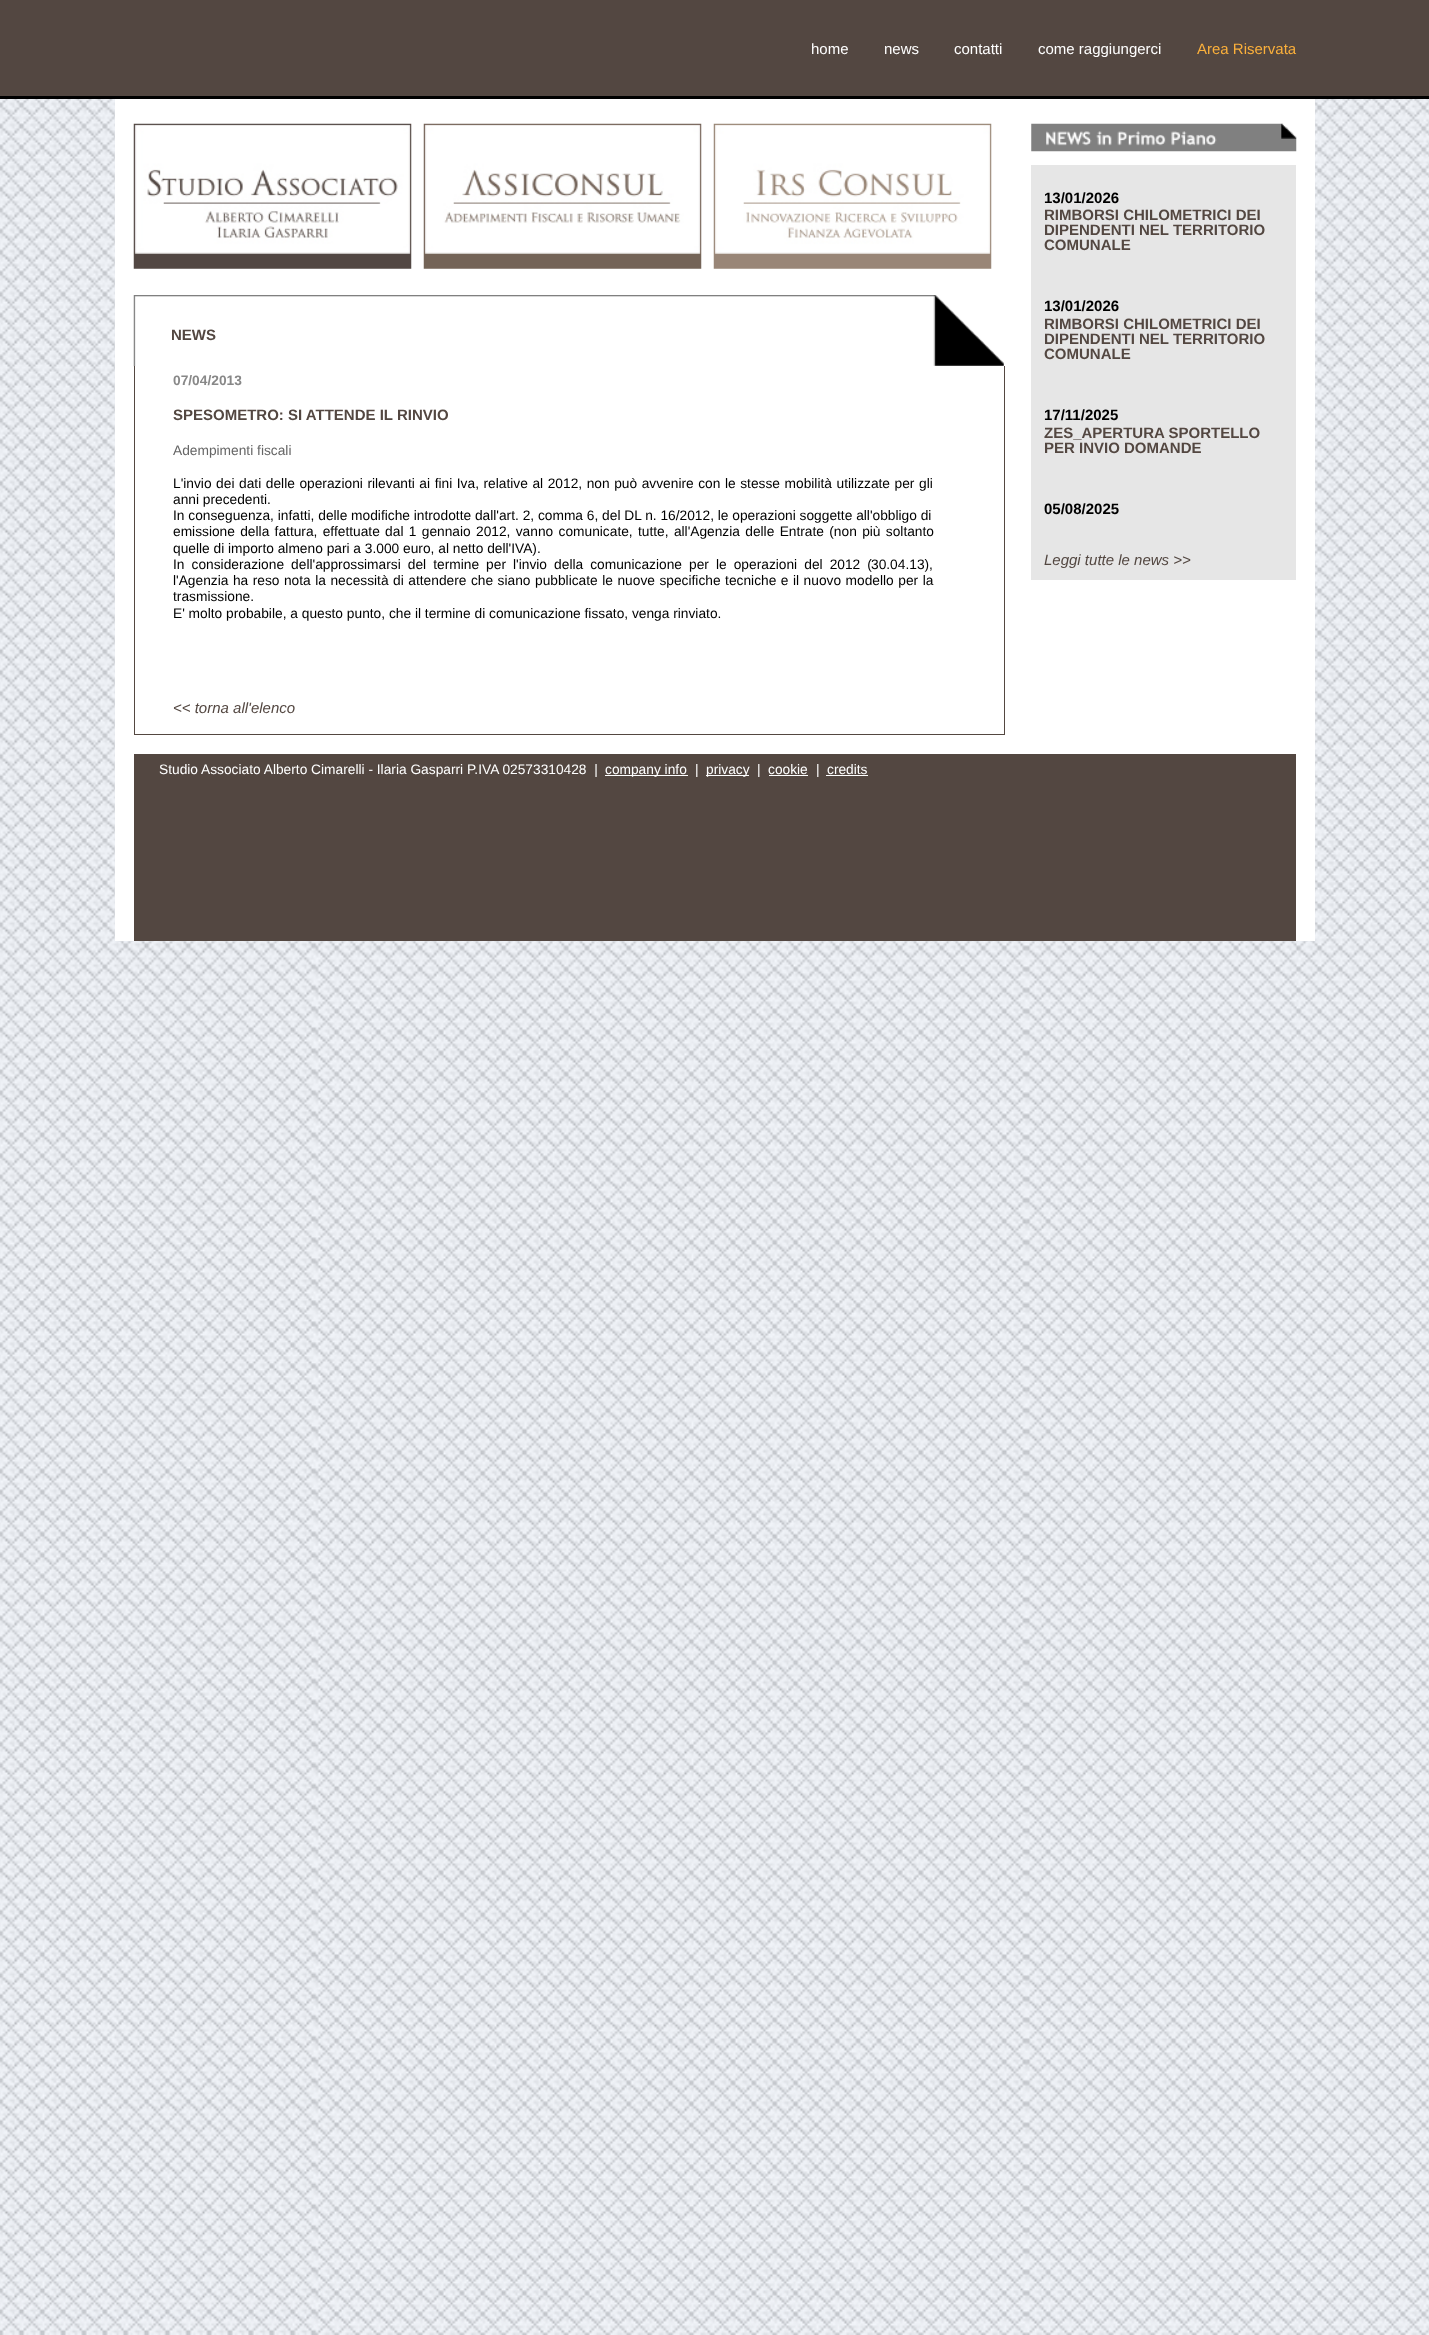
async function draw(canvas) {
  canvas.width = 1429;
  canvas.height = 2335;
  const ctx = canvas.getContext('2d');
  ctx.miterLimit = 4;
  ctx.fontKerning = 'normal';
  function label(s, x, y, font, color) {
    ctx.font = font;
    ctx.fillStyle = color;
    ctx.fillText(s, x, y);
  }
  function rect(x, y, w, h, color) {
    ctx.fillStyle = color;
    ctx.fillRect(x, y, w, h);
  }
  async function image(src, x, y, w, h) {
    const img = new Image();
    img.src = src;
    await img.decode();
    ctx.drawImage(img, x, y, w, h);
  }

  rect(0, 0, 1429, 2335, '#fff');
  rect(0, 0, 1429, 96, '#534741');
  rect(0, 96, 1429, 3, '#000');
  label('home', 811, 54, '15px Liberation Sans', '#fff');
  label('news', 884, 54, '15px Liberation Sans', '#fff');
  label('contatti', 954, 54, '15px Liberation Sans', '#fff');
  label('come raggiungerci', 1038, 54, '15px Liberation Sans', '#fff');
  label('Area Riservata', 1197, 54, '15px Liberation Sans', '#fbb03b');
  await image('assets/img1.png', 0, 99, 1429, 2236);
  rect(115, 99, 1200, 842, '#fff');
  await image('assets/img2.png', 133, 123, 279, 146);
  await image('assets/img3.png', 423, 123, 279, 146);
  await image('assets/img4.png', 713, 123, 279, 146);
  await image('assets/img5.png', 133, 295, 871, 72);
  label('NEWS', 171, 340, 'bold 15px Liberation Sans', '#534741');
  rect(135, 366, 869, 1, '#fff');
  rect(1004, 366, 1, 369, '#534741');
  rect(134, 734, 871, 1, '#534741');
  rect(134, 366, 1, 369, '#534741');
  label('07/04/2013', 173, 385, 'bold 13.75px Liberation Sans', '#888');
  label('SPESOMETRO: SI ATTENDE IL RINVIO', 173, 420, 'bold 15px Liberation Sans', '#534741');
  label('Adempimenti fiscali', 173, 455, '13.75px Liberation Sans', '#666');
  ctx.wordSpacing = '0.75px';
  label('L\'invio dei dati delle operazioni rilevanti ai fini Iva, relative al 2012, non può avvenire con le stesse mobilità utilizzate per gli', 173, 488, '13.75px Liberation Sans', '#000');
  ctx.wordSpacing = '0px';
  label('anni precedenti.', 173, 504, '13.75px Liberation Sans', '#000');
  label('In conseguenza, infatti, delle modifiche introdotte dall\'art. 2, comma 6, del DL n. 16/2012, le operazioni soggette all\'obbligo di', 173, 520, '13.75px Liberation Sans', '#000');
  ctx.wordSpacing = '1.5px';
  label('emissione della fattura, effettuate dal 1 gennaio 2012, vanno comunicate, tutte, all\'Agenzia delle Entrate (non più soltanto', 173, 536, '13.75px Liberation Sans', '#000');
  ctx.wordSpacing = '0px';
  label('quelle di importo almeno pari a 3.000 euro, al netto dell\'IVA).', 173, 553, '13.75px Liberation Sans', '#000');
  ctx.wordSpacing = '3.25px';
  label('In considerazione dell\'approssimarsi del termine per l\'invio della comunicazione per le operazioni del 2012 (', 173, 569, '13.75px Liberation Sans', '#000');
  ctx.wordSpacing = '0px';
  label('30.04.13),', 871, 569, '13.75px Liberation Sans', '#000');
  ctx.wordSpacing = '0.7px';
  label('l\'Agenzia ha reso nota la necessità di attendere che siano pubblicate le nuove specifiche tecniche e il nuovo modello per la', 173, 585, '13.75px Liberation Sans', '#000');
  ctx.wordSpacing = '0px';
  label('trasmissione.', 173, 601, '13.75px Liberation Sans', '#000');
  label('E\' molto probabile, a questo punto, che il termine di comunicazione fissato, venga rinviato.', 173, 618, '13.75px Liberation Sans', '#000');
  label('<< torna all\'elenco', 173, 713, 'italic 15px Liberation Sans', '#534741');
  rect(1031, 165, 265, 415, '#e6e6e6');
  await image('assets/img6.png', 1031, 123, 266, 29);
  label('13/01/2026', 1044, 203, 'bold 15px Liberation Sans', '#000');
  label('RIMBORSI CHILOMETRICI DEI', 1044, 220, 'bold 15px Liberation Sans', '#534741');
  label('DIPENDENTI NEL TERRITORIO', 1044, 235, 'bold 15px Liberation Sans', '#534741');
  label('COMUNALE', 1044, 250, 'bold 15px Liberation Sans', '#534741');
  label('13/01/2026', 1044, 311, 'bold 15px Liberation Sans', '#000');
  label('RIMBORSI CHILOMETRICI DEI', 1044, 329, 'bold 15px Liberation Sans', '#534741');
  label('DIPENDENTI NEL TERRITORIO', 1044, 344, 'bold 15px Liberation Sans', '#534741');
  label('COMUNALE', 1044, 359, 'bold 15px Liberation Sans', '#534741');
  label('17/11/2025', 1044, 420, 'bold 15px Liberation Sans', '#000');
  label('ZES_APERTURA SPORTELLO', 1044, 438, 'bold 15px Liberation Sans', '#534741');
  label('PER INVIO DOMANDE', 1044, 453, 'bold 15px Liberation Sans', '#534741');
  label('05/08/2025', 1044, 514, 'bold 15px Liberation Sans', '#000');
  label('Leggi tutte le news >>', 1044, 565, 'italic 15px Liberation Sans', '#534741');
  rect(134, 754, 1162, 187, '#534741');
  label('Studio Associato Alberto Cimarelli - Ilaria Gasparri P.IVA 02573310428  |', 159, 774, '13.75px Liberation Sans', '#fff');
  rect(605, 775, 83, 1, '#fff');
  label('company info', 605, 774, '13.75px Liberation Sans', '#fff');
  label('|', 695, 774, '13.75px Liberation Sans', '#fff');
  rect(706, 775, 43, 1, '#fff');
  label('privacy', 706, 774, '13.75px Liberation Sans', '#fff');
  label('|', 757, 774, '13.75px Liberation Sans', '#fff');
  label('cookie', 768, 774, '13.75px Liberation Sans', '#fff');
  rect(769, 775, 39, 1, '#fff');
  label('|', 816, 774, '13.75px Liberation Sans', '#fff');
  label('credits', 827, 774, '13.75px Liberation Sans', '#fff');
  rect(826, 775, 42, 1, '#fff');
}

draw(document.querySelector('canvas'));
